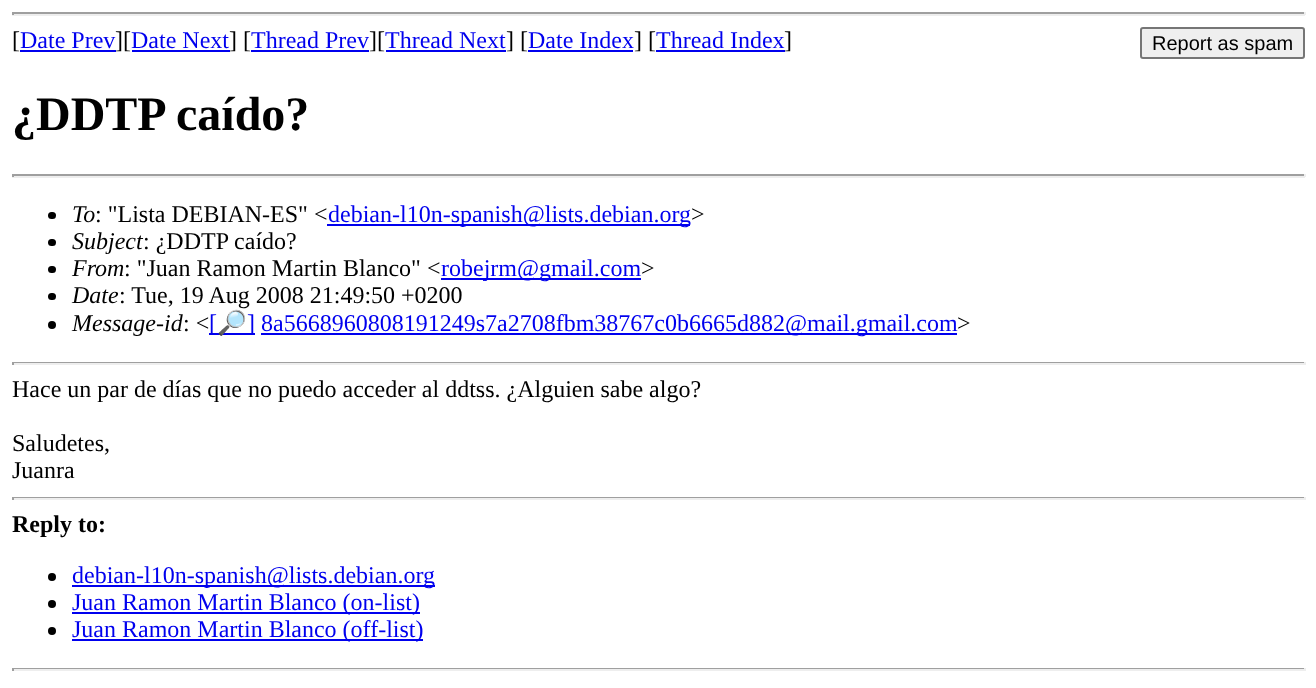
async function draw(canvas) {
  canvas.width = 1316;
  canvas.height = 688;
  const ctx = canvas.getContext('2d');
  ctx.miterLimit = 4;
  ctx.fontKerning = 'normal';
  function label(s, x, y, font, color) {
    ctx.font = font;
    ctx.fillStyle = color;
    ctx.fillText(s, x, y);
  }
  function rect(x, y, w, h, color) {
    ctx.fillStyle = color;
    ctx.fillRect(x, y, w, h);
  }
  function roundedRect(x, y, w, h, r, color) {
    ctx.fillStyle = color;
    ctx.beginPath();
    ctx.roundRect(x, y, w, h, r);
    ctx.fill();
  }

  rect(0, 0, 1316, 688, '#fff');
  rect(12, 12, 1293, 2, '#9f9f9f');
  rect(1304, 12, 2, 3, '#eee');
  rect(12, 14, 1293, 2, '#eee');
  rect(12, 12, 2, 3, '#9f9f9f');
  label('[', 12, 48, '24px Liberation Serif', '#000');
  label('Date Prev', 20, 48, '24px Liberation Serif', '#00e');
  rect(20, 50, 96, 2, '#00e');
  label('][', 115, 48, '24px Liberation Serif', '#000');
  label('Date Next', 131, 48, '24px Liberation Serif', '#00e');
  rect(132, 50, 98, 2, '#00e');
  label('] [', 229, 48, '24px Liberation Serif', '#000');
  label('Thread Prev', 251, 48, '24px Liberation Serif', '#00e');
  rect(251, 50, 118, 2, '#00e');
  label('][', 369, 48, '24px Liberation Serif', '#000');
  label('Thread Next', 385, 48, '24px Liberation Serif', '#00e');
  rect(386, 50, 120, 2, '#00e');
  label('] [', 506, 48, '24px Liberation Serif', '#000');
  label('Date Index', 528, 48, '24px Liberation Serif', '#00e');
  rect(528, 50, 105, 2, '#00e');
  label('] [', 634, 48, '24px Liberation Serif', '#000');
  label('Thread Index', 656, 48, '24px Liberation Serif', '#00e');
  rect(656, 50, 129, 2, '#00e');
  label(']', 784, 48, '24px Liberation Serif', '#000');
  ctx.fillStyle = '#efefef';
  ctx.beginPath();
  ctx.roundRect(1141, 28, 163, 30, 2);
  ctx.fill();
  ctx.strokeStyle = '#767676';
  ctx.lineWidth = 2;
  ctx.stroke();
  label('Report as spam', 1152, 50, '20px Liberation Sans', '#000');
  label('¿DDTP caído?', 12, 130, 'bold 48px Liberation Serif', '#000');
  rect(12, 174, 1293, 2, '#9f9f9f');
  rect(1304, 174, 2, 3, '#eee');
  rect(12, 176, 1293, 2, '#eee');
  rect(12, 174, 2, 3, '#9f9f9f');
  roundedRect(48, 212, 8, 7, 3.5, '#000');
  label('To', 72, 222, 'italic 24px Liberation Serif', '#000');
  label(': "Lista DEBIAN-ES" <', 95, 222, '24px Liberation Serif', '#000');
  rect(327, 224, 363, 2, '#00e');
  label('debian-l10n-spanish@lists.debian.org', 328, 222, '24px Liberation Serif', '#00e');
  label('>', 691, 222, '24px Liberation Serif', '#000');
  roundedRect(48, 239, 8, 7, 3.5, '#000');
  label('Subject', 72, 249, 'italic 24px Liberation Serif', '#000');
  label(': ¿DDTP caído?', 143, 249, '24px Liberation Serif', '#000');
  roundedRect(48, 266, 8, 7, 3.5, '#000');
  label('From', 72, 276, 'italic 24px Liberation Serif', '#000');
  label(': "Juan Ramon Martin Blanco" <', 124, 276, '24px Liberation Serif', '#000');
  rect(441, 278, 200, 2, '#00e');
  label('robejrm@gmail.com', 441, 276, '24px Liberation Serif', '#00e');
  label('>', 641, 276, '24px Liberation Serif', '#000');
  roundedRect(48, 293, 8, 7, 3.5, '#000');
  label('Date', 72, 303, 'italic 24px Liberation Serif', '#000');
  label(': Tue, 19 Aug 2008 21:49:50 +0200', 119, 303, '24px Liberation Serif', '#000');
  ctx.beginPath();
  ctx.arc(52, 325, 4, 0, 2 * Math.PI);
  ctx.fill();
  label('Message-id', 72, 331, 'italic 24px Liberation Serif', '#000');
  label(': <', 183, 331, '24px Liberation Serif', '#000');
  rect(209, 333, 46, 2, '#00e');
  label('[', 209, 331, '24px Liberation Serif', '#00e');
  label('🔎', 217, 331, '24px Noto Color Emoji', '#00e');
  label(']', 247, 331, '24px Liberation Serif', '#00e');
  rect(261, 333, 696, 2, '#00e');
  label('8a5668960808191249s7a2708fbm38767c0b6665d882@mail.gmail.com', 261, 331, '24px Liberation Serif', '#00e');
  label('>', 957, 331, '24px Liberation Serif', '#000');
  rect(12, 362, 1293, 1, '#9f9f9f');
  rect(1304, 362, 2, 3, '#eee');
  rect(12, 363, 1293, 2, '#eee');
  rect(12, 362, 2, 3, '#9f9f9f');
  label('Hace un par de días que no puedo acceder al ddtss. ¿Alguien sabe algo?', 12, 397, '24px Liberation Serif', '#000');
  label('Saludetes,', 12, 451, '24px Liberation Serif', '#000');
  label('Juanra', 12, 478, '24px Liberation Serif', '#000');
  rect(12, 497, 1293, 1, '#9f9f9f');
  rect(1304, 497, 2, 3, '#eee');
  rect(12, 498, 1293, 2, '#eee');
  rect(12, 497, 2, 3, '#9f9f9f');
  label('Reply to:', 12, 532, 'bold 24px Liberation Serif', '#000');
  ctx.beginPath();
  ctx.arc(52, 577, 4, 0, 2 * Math.PI);
  ctx.fill();
  rect(72, 585, 363, 2, '#00e');
  label('debian-l10n-spanish@lists.debian.org', 72, 583, '24px Liberation Serif', '#00e');
  ctx.fillStyle = '#000';
  ctx.beginPath();
  ctx.arc(52, 604, 4, 0, 2 * Math.PI);
  ctx.fill();
  rect(72, 612, 348, 2, '#00e');
  label('Juan Ramon Martin Blanco (on-list)', 72, 610, '24px Liberation Serif', '#00e');
  ctx.fillStyle = '#000';
  ctx.beginPath();
  ctx.arc(52, 631, 4, 0, 2 * Math.PI);
  ctx.fill();
  rect(72, 639, 351, 2, '#00e');
  label('Juan Ramon Martin Blanco (off-list)', 72, 637, '24px Liberation Serif', '#00e');
  rect(12, 668, 1293, 1, '#9f9f9f');
  rect(1304, 668, 2, 3, '#eee');
  rect(12, 669, 1293, 2, '#eee');
  rect(12, 668, 2, 3, '#9f9f9f');
}

draw(document.querySelector('canvas'));
